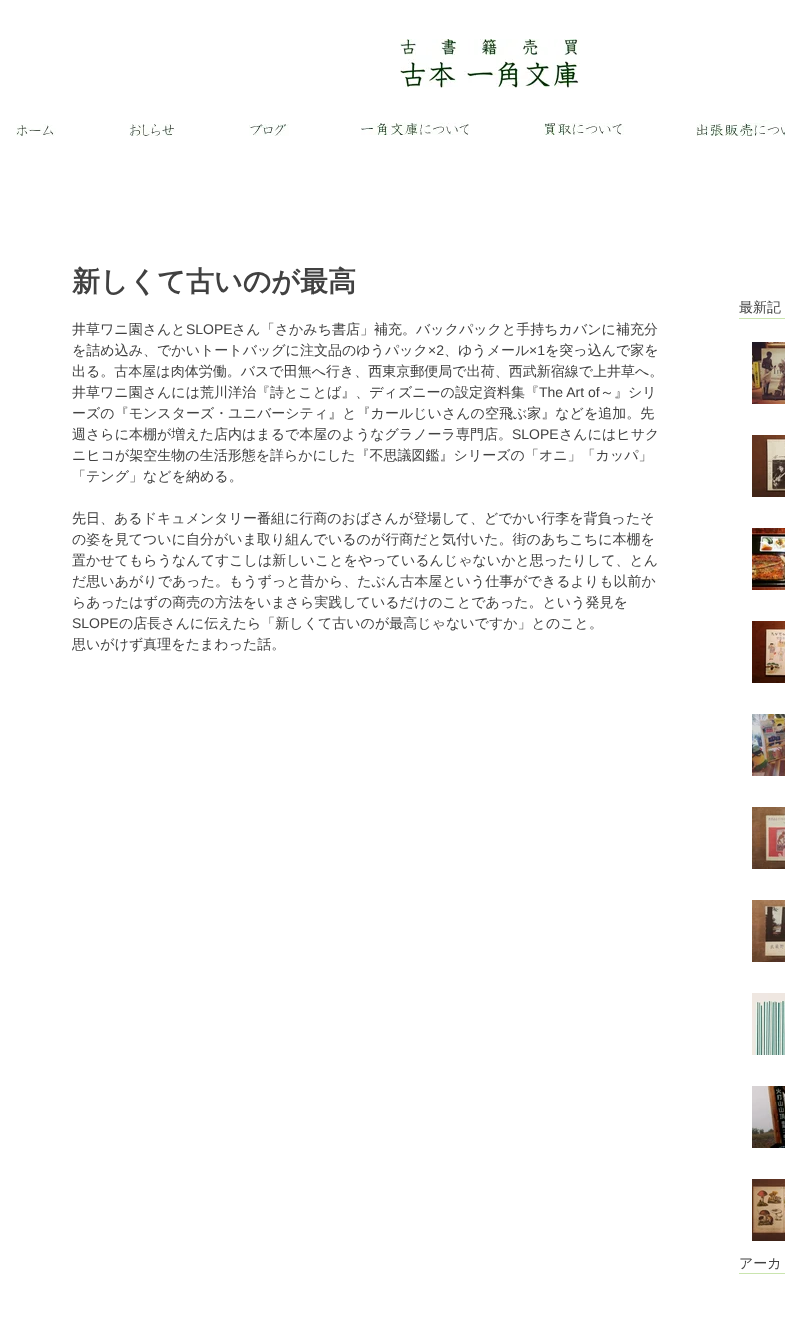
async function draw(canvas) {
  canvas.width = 785;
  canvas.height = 1323;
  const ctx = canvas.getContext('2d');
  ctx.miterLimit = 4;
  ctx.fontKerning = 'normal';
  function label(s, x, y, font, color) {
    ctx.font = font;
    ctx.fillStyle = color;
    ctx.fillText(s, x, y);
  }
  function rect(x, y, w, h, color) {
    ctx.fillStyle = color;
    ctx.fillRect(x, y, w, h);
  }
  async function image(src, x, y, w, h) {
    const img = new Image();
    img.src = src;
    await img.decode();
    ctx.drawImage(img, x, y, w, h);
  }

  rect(0, 0, 785, 1323, '#fff');
  await image('assets/img1.png', 400, 39, 180, 50);
  await image('assets/img2.png', 16, 124, 40, 12);
  await image('assets/img3.png', 129, 124, 46, 12);
  await image('assets/img4.png', 249, 124, 40, 12);
  await image('assets/img5.png', 361, 122, 108, 13);
  await image('assets/img6.png', 543, 123, 81, 12);
  await image('assets/img7.png', 696, 120, 89, 16);
  label('新しくて古いのが最高', 72, 291, 'bold 28px WenQuanYi Zen Hei', '#414141');
  label('井草ワニ園さんと', 72, 334, '500 14px WenQuanYi Zen Hei', '#414141');
  label('SLOPE', 186, 334, '14px Liberation Sans', '#414141');
  label('さん「さかみち書店」補充。バックパックと手持ちカバンに補充分', 232, 334, '500 14px WenQuanYi Zen Hei', '#414141');
  label('を詰め込み、でかいトートバッグに注文品のゆうパック', 72, 355, '500 14px WenQuanYi Zen Hei', '#414141');
  label('×2', 428, 355, '14px Liberation Sans', '#414141');
  label('、ゆうメール', 444, 355, '500 14px WenQuanYi Zen Hei', '#414141');
  label('×1', 529, 355, '14px Liberation Sans', '#414141');
  label('を突っ込んで家を', 545, 355, '500 14px WenQuanYi Zen Hei', '#414141');
  label('出る。古本屋は肉体労働。バスで田無へ行き、西東京郵便局で出荷、西武新宿線で上井草へ。', 72, 376, '500 14px WenQuanYi Zen Hei', '#414141');
  label('井草ワニ園さんには荒川洋治『詩とことば』、ディズニーの設定資料集『', 72, 397, '500 14px WenQuanYi Zen Hei', '#414141');
  label('The Art of', 539, 397, '14px Liberation Sans', '#414141');
  label('～』シリ', 600, 397, '500 14px WenQuanYi Zen Hei', '#414141');
  label('ーズの『モンスターズ・ユニバーシティ』と『カールじいさんの空飛ぶ家』などを追加。先', 72, 418, '500 14px WenQuanYi Zen Hei', '#414141');
  label('週さらに本棚が増えた店内はまるで本屋のようなグラノーラ専門店。', 72, 439, '500 14px WenQuanYi Zen Hei', '#414141');
  label('SLOPE', 512, 439, '14px Liberation Sans', '#414141');
  label('さんにはヒサク', 559, 439, '500 14px WenQuanYi Zen Hei', '#414141');
  label('ニヒコが架空生物の生活形態を詳らかにした『不思議図鑑』シリーズの「オニ」「カッパ」', 72, 460, '500 14px WenQuanYi Zen Hei', '#414141');
  label('「テング」などを納める。', 72, 481, '500 14px WenQuanYi Zen Hei', '#414141');
  label('先日、あるドキュメンタリー番組に行商のおばさんが登場して、どでかい行李を背負ったそ', 72, 523, '500 14px WenQuanYi Zen Hei', '#414141');
  label('の姿を見てついに自分がいま取り組んでいるのが行商だと気付いた。街のあちこちに本棚を', 72, 544, '500 14px WenQuanYi Zen Hei', '#414141');
  label('置かせてもらうなんてすこしは新しいことをやっているんじゃないかと思ったりして、とん', 72, 565, '500 14px WenQuanYi Zen Hei', '#414141');
  label('だ思いあがりであった。もうずっと昔から、たぶん古本屋という仕事ができるよりも以前か', 72, 586, '500 14px WenQuanYi Zen Hei', '#414141');
  label('らあったはずの商売の方法をいまさら実践しているだけのことであった。という発見を', 72, 607, '500 14px WenQuanYi Zen Hei', '#414141');
  label('SLOPE', 72, 628, '14px Liberation Sans', '#414141');
  label('の店長さんに伝えたら「新しくて古いのが最高じゃないですか」とのこと。', 119, 628, '500 14px WenQuanYi Zen Hei', '#414141');
  label('思いがけず真理をたまわった話。', 72, 649, '500 14px WenQuanYi Zen Hei', '#414141');
  label('最新記', 739, 312, '500 14px WenQuanYi Zen Hei', '#414141');
  rect(739, 318, 46, 1, '#cae5af');
  await image('assets/img8.png', 752, 342, 33, 62);
  await image('assets/img9.png', 752, 435, 33, 62);
  await image('assets/img10.png', 752, 528, 33, 62);
  await image('assets/img11.png', 752, 621, 33, 62);
  await image('assets/img12.png', 752, 714, 33, 62);
  await image('assets/img13.png', 752, 807, 33, 62);
  await image('assets/img14.png', 752, 900, 33, 62);
  await image('assets/img15.png', 752, 993, 33, 62);
  await image('assets/img16.png', 752, 1086, 33, 62);
  await image('assets/img17.png', 752, 1179, 33, 62);
  label('アーカ', 739, 1268, '500 14px WenQuanYi Zen Hei', '#414141');
  rect(739, 1273, 46, 1, '#cae5af');
}

draw(document.querySelector('canvas'));
